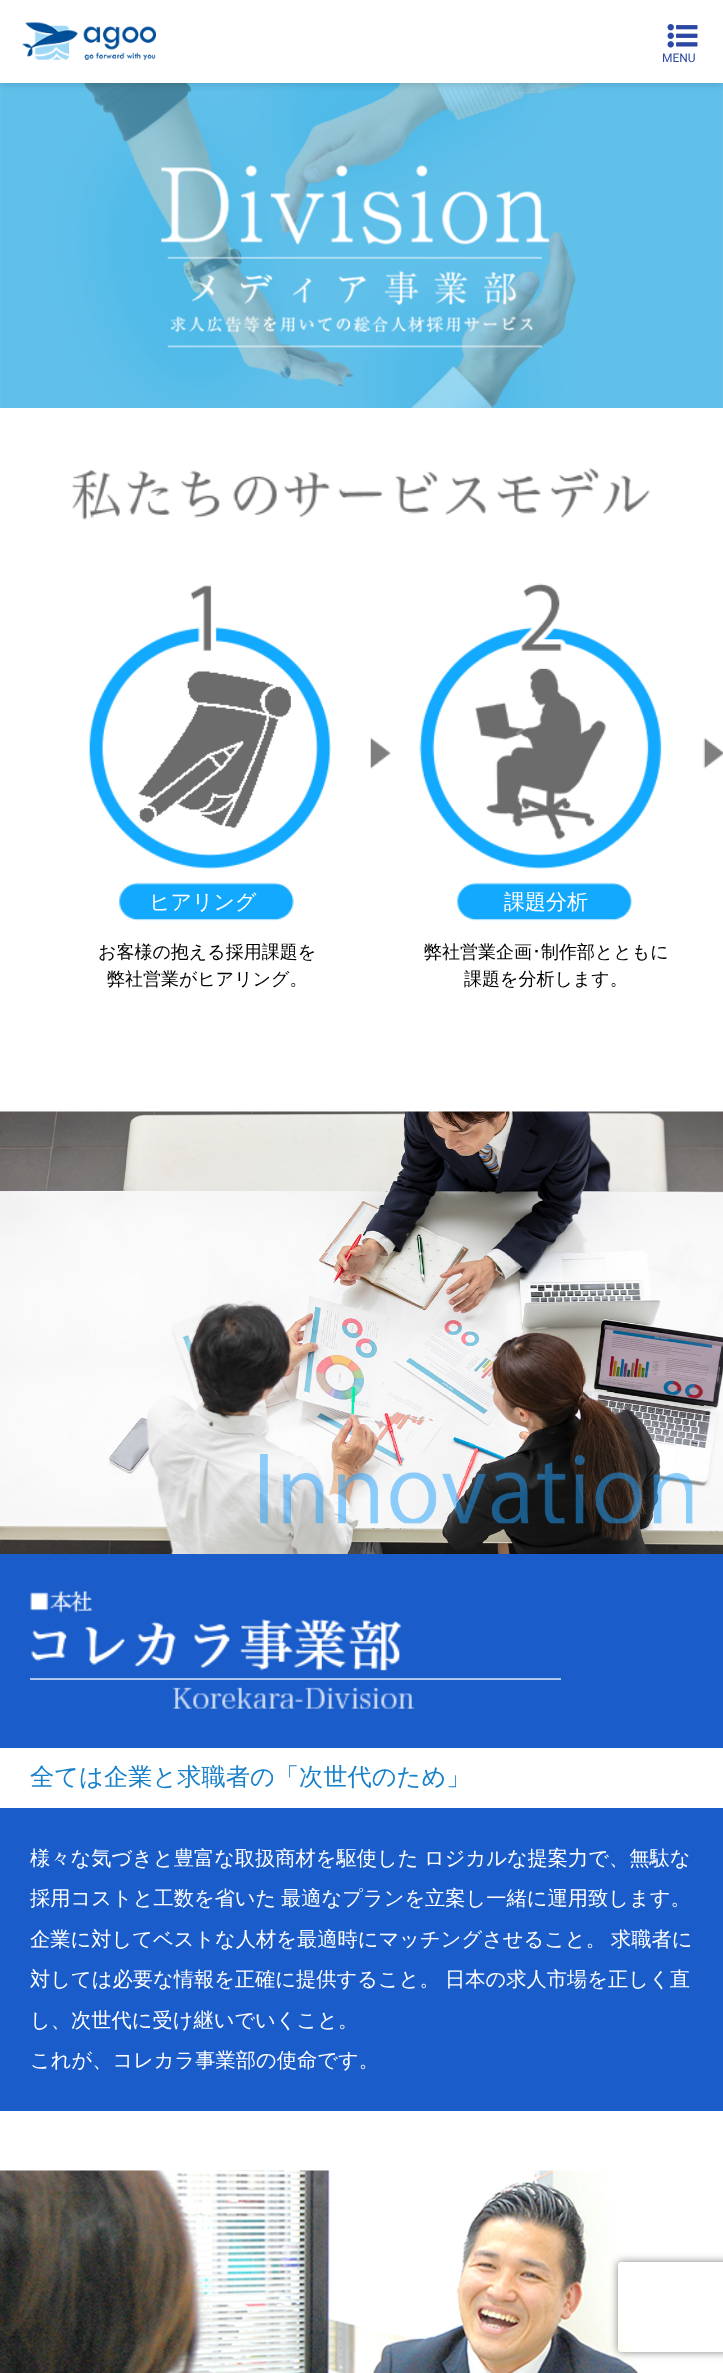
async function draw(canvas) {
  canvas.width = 723;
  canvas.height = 2373;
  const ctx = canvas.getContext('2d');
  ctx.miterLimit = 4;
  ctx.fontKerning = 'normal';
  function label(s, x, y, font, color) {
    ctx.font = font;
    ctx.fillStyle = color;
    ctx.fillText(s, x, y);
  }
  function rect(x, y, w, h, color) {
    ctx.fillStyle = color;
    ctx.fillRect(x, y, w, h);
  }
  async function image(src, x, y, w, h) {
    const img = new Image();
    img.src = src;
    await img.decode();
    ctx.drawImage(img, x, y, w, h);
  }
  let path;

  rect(0, 0, 723, 2373, '#fff');
  await image('assets/img3.png', 0, 83, 723, 325);
  ctx.fillStyle = '#00000033';
  ctx.filter = 'blur(4px)';
  ctx.beginPath();
  ctx.rect(0, 0, 723, 83);
  ctx.fill();
  ctx.filter = 'none';
  rect(0, 0, 723, 83, '#fff');
  await image('assets/img1.png', 22, 22, 134, 38);
  await image('assets/img2.png', 667, 24, 31, 24);
  label('MENU', 662, 62, '12px Roboto', '#2c48a4');
  await image('assets/img4.png', 72, 468, 578, 52);
  await image('assets/img5.png', 89, 583, 634, 338);
  label('ヒアリング', 149, 909, '500 21px WenQuanYi Zen Hei', '#fff');
  label('お客様の抱える採用課題を', 98, 958, '500 18px WenQuanYi Zen Hei', '#000');
  label('弊社営業がヒアリング。', 107, 985, '500 18px WenQuanYi Zen Hei', '#000');
  label('課題分析', 504, 909, '500 21px WenQuanYi Zen Hei', '#fff');
  label('弊社営業企画', 424, 958, '500 18px WenQuanYi Zen Hei', '#000');
  label('･', 532, 958, '18px IPAPGothic', '#000');
  label('制作部とともに', 541, 958, '500 18px WenQuanYi Zen Hei', '#000');
  label('課題を分析します。', 464, 985, '500 18px WenQuanYi Zen Hei', '#000');
  await image('assets/img6.png', 0, 1111, 723, 443);
  await image('assets/img7.png', 260, 1454, 433, 70);
  rect(0, 1554, 723, 194, '#195cca');
  await image('assets/img8.png', 30, 1591, 531, 118);
  label('全ては企業と求職者の「次世代のため」', 30, 1785, '500 24.25px WenQuanYi Zen Hei', '#1980ca');
  rect(0, 1808, 723, 303, '#195cca');
  label('様々な気づきと豊富な取扱商材を駆使した', 30, 1865, '500 20.25px WenQuanYi Zen Hei', '#fff');
  label('ロジカルな提案力で、無駄な', 424, 1865, '500 20.25px WenQuanYi Zen Hei', '#fff');
  label('採用コストと工数を省いた', 30, 1905, '500 20.25px WenQuanYi Zen Hei', '#fff');
  label('最適なプランを立案し一緒に運用致します。', 281, 1905, '500 20.25px WenQuanYi Zen Hei', '#fff');
  label('企業に対してベストな人材を最適時にマッチングさせること。', 30, 1946, '500 20.25px WenQuanYi Zen Hei', '#fff');
  label('求職者に', 611, 1946, '500 20.25px WenQuanYi Zen Hei', '#fff');
  label('対しては必要な情報を正確に提供すること。', 30, 1986, '500 20.25px WenQuanYi Zen Hei', '#fff');
  label('日本の求人市場を正しく直', 445, 1986, '500 20.25px WenQuanYi Zen Hei', '#fff');
  label('し、次世代に受け継いでいくこと。', 30, 2027, '500 20.25px WenQuanYi Zen Hei', '#fff');
  label('これが、コレカラ事業部の使命です。', 30, 2067, '500 20.25px WenQuanYi Zen Hei', '#fff');
  await image('assets/img9.png', 0, 2170, 639, 203);
  ctx.save();
  path = new Path2D('M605 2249H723V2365H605ZM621 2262H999C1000.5 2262 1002 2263.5 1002 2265V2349C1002 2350.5 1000.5 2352 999 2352H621C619.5 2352 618 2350.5 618 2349V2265C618 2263.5 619.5 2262 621 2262Z');
  ctx.clip(path, 'evenodd');
  ctx.fillStyle = '#808080';
  ctx.filter = 'blur(4px)';
  ctx.beginPath();
  ctx.roundRect(618, 2262, 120, 90, 3);
  ctx.fill();
  ctx.filter = 'none';
  ctx.restore();
}

draw(document.querySelector('canvas'));
